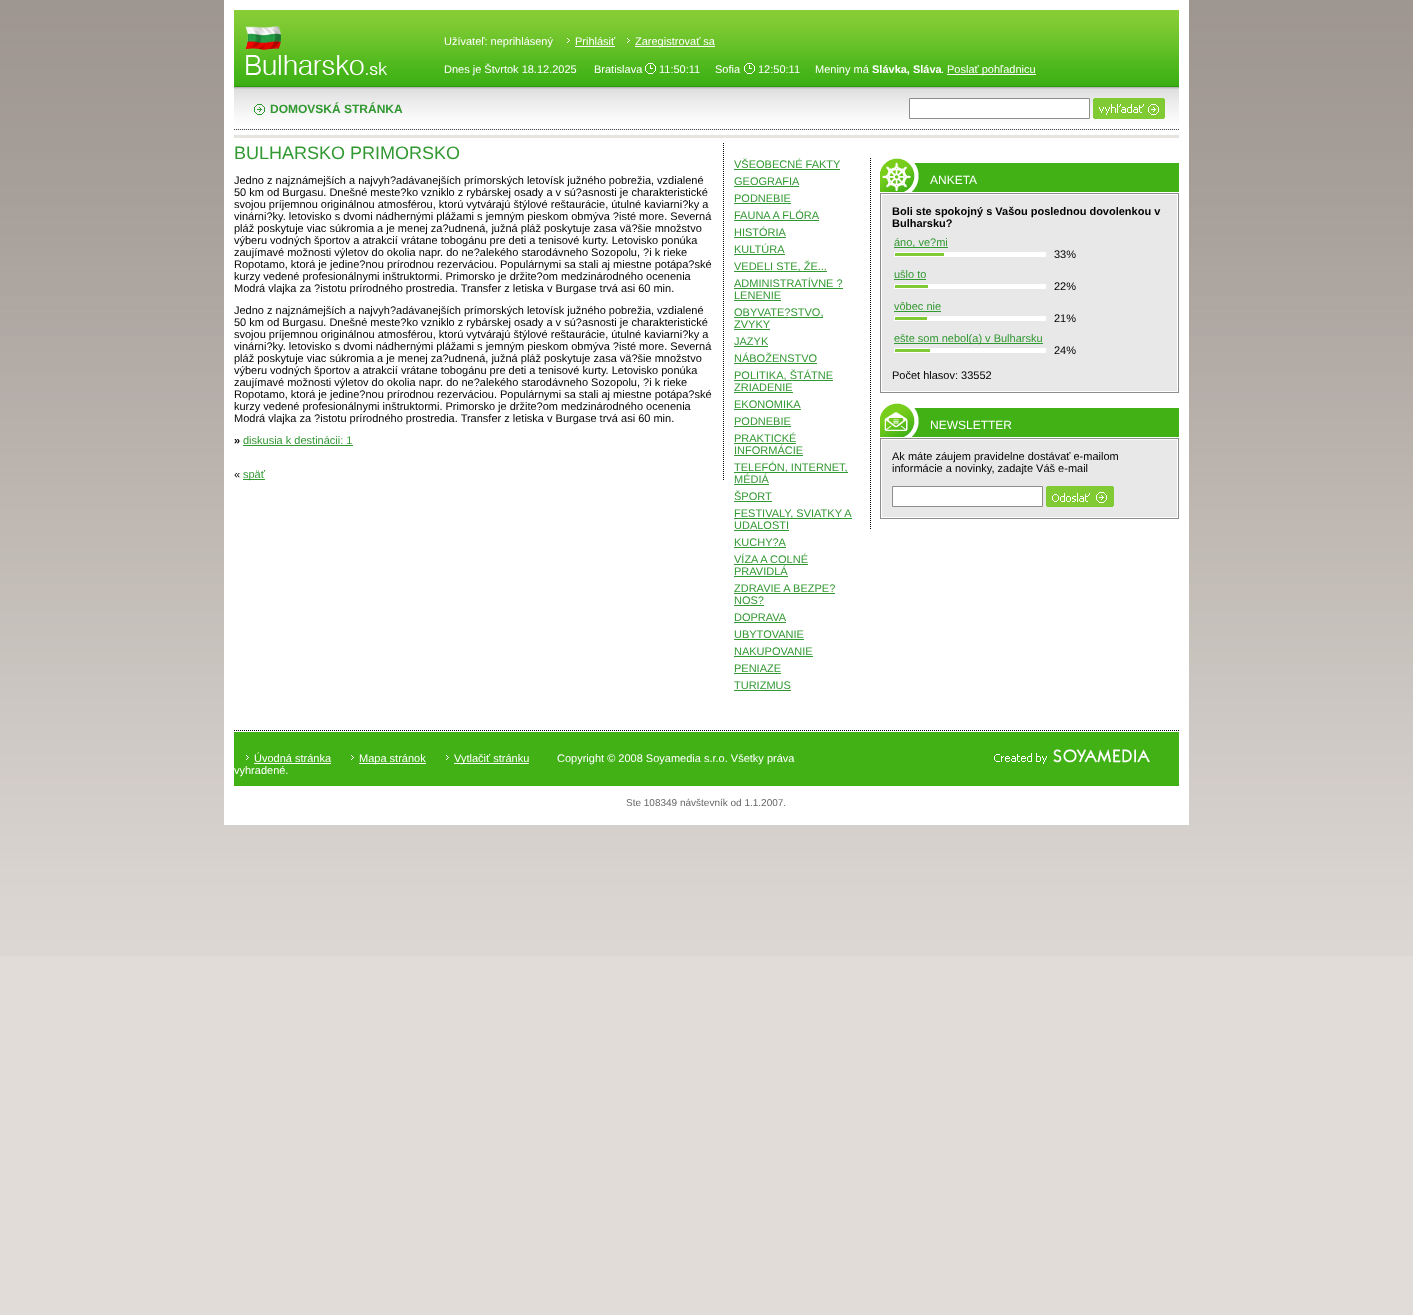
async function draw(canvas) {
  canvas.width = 1413;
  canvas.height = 1315;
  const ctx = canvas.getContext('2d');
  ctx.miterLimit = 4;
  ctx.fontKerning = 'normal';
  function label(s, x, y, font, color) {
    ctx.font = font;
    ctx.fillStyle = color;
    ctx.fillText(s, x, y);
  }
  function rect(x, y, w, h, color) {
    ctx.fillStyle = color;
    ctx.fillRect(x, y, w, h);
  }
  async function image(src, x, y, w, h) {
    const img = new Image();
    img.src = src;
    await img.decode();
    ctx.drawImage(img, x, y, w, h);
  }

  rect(0, 0, 1413, 1315, '#e1dcd8');
  await image('assets/img1.png', 0, 0, 1413, 956);
  rect(224, 0, 965, 825, '#fff');
  await image('assets/img2.png', 234, 10, 945, 77);
  await image('assets/img3.png', 245, 26, 143, 49);
  label('Užívateľ: neprihlásený', 444, 45, '11px Liberation Sans', '#fff');
  await image('assets/img4.png', 567, 38, 3, 5);
  label('Prihlásiť', 575, 45, '11px Liberation Sans', '#fff');
  rect(575, 46, 40, 1, '#fff');
  await image('assets/img4.png', 627, 38, 3, 5);
  rect(635, 46, 80, 1, '#fff');
  label('Zaregistrovať sa', 635, 45, '11px Liberation Sans', '#fff');
  label('Dnes je Štvrtok 18.12.2025', 444, 73, '11px Liberation Sans', '#fff');
  label('Bratislava', 594, 73, '11px Liberation Sans', '#fff');
  await image('assets/img5.png', 645, 63, 11, 11);
  label('11:50:11', 659, 73, '11px Liberation Sans', '#fff');
  label('Sofia', 715, 73, '11px Liberation Sans', '#fff');
  await image('assets/img5.png', 744, 63, 11, 11);
  label('12:50:11', 758, 73, '11px Liberation Sans', '#fff');
  label('Meniny má', 815, 73, '11px Liberation Sans', '#fff');
  label('Slávka, Sláva', 872, 73, 'bold 11px Liberation Sans', '#fff');
  label('.', 941, 73, '11px Liberation Sans', '#fff');
  rect(947, 74, 89, 1, '#fff');
  label('Poslať pohľadnicu', 947, 73, '11px Liberation Sans', '#fff');
  await image('assets/img6.png', 234, 87, 945, 43);
  await image('assets/img7.png', 254, 104, 11, 11);
  label('DOMOVSKÁ STRÁNKA', 270, 113, 'bold 12px Liberation Sans', '#329832');
  ctx.fillStyle = '#fff';
  ctx.beginPath();
  ctx.rect(909.5, 98.5, 180, 20);
  ctx.fill();
  ctx.strokeStyle = '#8d8d8d';
  ctx.stroke();
  await image('assets/img8.png', 1093, 98, 72, 21);
  rect(234, 135, 945, 3, '#e7e3df');
  await image('assets/img9.png', 723, 143, 1, 337);
  label('BULHARSKO PRIMORSKO', 234, 159, '18px Liberation Sans', '#329832');
  label('Jedno z najznámejších a najvyh?adávanejších prímorských letovísk južného pobrežia, vzdialené', 234, 184, '11px Liberation Sans', '#000');
  label('50 km od Burgasu. Dnešné meste?ko vzniklo z rybárskej osady a v sú?asnosti je charakteristické', 234, 196, '11px Liberation Sans', '#000');
  label('svojou príjemnou originálnou atmosférou, ktorú vytvárajú štýlové reštaurácie, útulné kaviarni?ky a', 234, 208, '11px Liberation Sans', '#000');
  label('vinárni?ky. letovisko s dvomi nádhernými plážami s jemným pieskom obmýva ?isté more. Severná', 234, 220, '11px Liberation Sans', '#000');
  label('pláž poskytuje viac súkromia a je menej za?udnená, južná pláž poskytuje zasa vä?šie množstvo', 234, 232, '11px Liberation Sans', '#000');
  label('výberu vodných športov a atrakcií vrátane tobogánu pre deti a tenisové kurty. Letovisko ponúka', 234, 244, '11px Liberation Sans', '#000');
  label('zaujímavé možnosti výletov do okolia napr. do ne?alekého starodávneho Sozopolu, ?i k rieke', 234, 256, '11px Liberation Sans', '#000');
  label('Ropotamo, ktorá je jedine?nou prírodnou rezerváciou. Populárnymi sa stali aj miestne potápa?ské', 234, 268, '11px Liberation Sans', '#000');
  label('kurzy vedené profesionálnymi inštruktormi. Primorsko je držite?om medzinárodného ocenenia', 234, 280, '11px Liberation Sans', '#000');
  label('Modrá vlajka za ?istotu prírodného prostredia. Transfer z letiska v Burgase trvá asi 60 min.', 234, 292, '11px Liberation Sans', '#000');
  label('Jedno z najznámejších a najvyh?adávanejších prímorských letovísk južného pobrežia, vzdialené', 234, 314, '11px Liberation Sans', '#000');
  label('50 km od Burgasu. Dnešné meste?ko vzniklo z rybárskej osady a v sú?asnosti je charakteristické', 234, 326, '11px Liberation Sans', '#000');
  label('svojou príjemnou originálnou atmosférou, ktorú vytvárajú štýlové reštaurácie, útulné kaviarni?ky a', 234, 338, '11px Liberation Sans', '#000');
  label('vinárni?ky. letovisko s dvomi nádhernými plážami s jemným pieskom obmýva ?isté more. Severná', 234, 350, '11px Liberation Sans', '#000');
  label('pláž poskytuje viac súkromia a je menej za?udnená, južná pláž poskytuje zasa vä?šie množstvo', 234, 362, '11px Liberation Sans', '#000');
  label('výberu vodných športov a atrakcií vrátane tobogánu pre deti a tenisové kurty. Letovisko ponúka', 234, 374, '11px Liberation Sans', '#000');
  label('zaujímavé možnosti výletov do okolia napr. do ne?alekého starodávneho Sozopolu, ?i k rieke', 234, 386, '11px Liberation Sans', '#000');
  label('Ropotamo, ktorá je jedine?nou prírodnou rezerváciou. Populárnymi sa stali aj miestne potápa?ské', 234, 398, '11px Liberation Sans', '#000');
  label('kurzy vedené profesionálnymi inštruktormi. Primorsko je držite?om medzinárodného ocenenia', 234, 410, '11px Liberation Sans', '#000');
  label('Modrá vlajka za ?istotu prírodného prostredia. Transfer z letiska v Burgase trvá asi 60 min.', 234, 422, '11px Liberation Sans', '#000');
  label('»', 234, 444, 'bold 11px Liberation Sans', '#000');
  label('diskusia k destinácii: 1', 243, 444, '11px Liberation Sans', '#329832');
  rect(243, 445, 110, 1, '#329832');
  label('«', 234, 478, '11px Liberation Sans', '#000');
  rect(243, 479, 22, 1, '#329832');
  label('späť', 243, 478, '11px Liberation Sans', '#329832');
  label('VŠEOBECNÉ FAKTY', 734, 168, '11px Liberation Sans', '#329832');
  rect(734, 169, 106, 1, '#329832');
  label('GEOGRAFIA', 734, 185, '11px Liberation Sans', '#329832');
  rect(734, 186, 65, 1, '#329832');
  label('PODNEBIE', 734, 202, '11px Liberation Sans', '#329832');
  rect(734, 203, 57, 1, '#329832');
  label('FAUNA A FLÓRA', 734, 219, '11px Liberation Sans', '#329832');
  rect(734, 220, 85, 1, '#329832');
  label('HISTÓRIA', 734, 236, '11px Liberation Sans', '#329832');
  rect(734, 237, 52, 1, '#329832');
  label('KULTÚRA', 734, 253, '11px Liberation Sans', '#329832');
  rect(734, 254, 51, 1, '#329832');
  rect(734, 271, 93, 1, '#329832');
  label('VEDELI STE, ŽE...', 734, 270, '11px Liberation Sans', '#329832');
  label('ADMINISTRATÍVNE ?', 734, 287, '11px Liberation Sans', '#329832');
  rect(734, 288, 109, 1, '#329832');
  label('LENENIE', 734, 299, '11px Liberation Sans', '#329832');
  rect(734, 300, 47, 1, '#329832');
  rect(734, 317, 89, 1, '#329832');
  label('OBYVATE?STVO,', 734, 316, '11px Liberation Sans', '#329832');
  label('ZVYKY', 734, 328, '11px Liberation Sans', '#329832');
  rect(734, 329, 36, 1, '#329832');
  label('JAZYK', 734, 345, '11px Liberation Sans', '#329832');
  rect(734, 346, 34, 1, '#329832');
  label('NÁBOŽENSTVO', 734, 362, '11px Liberation Sans', '#329832');
  rect(734, 363, 83, 1, '#329832');
  rect(734, 380, 99, 1, '#329832');
  label('POLITIKA, ŠTÁTNE', 734, 379, '11px Liberation Sans', '#329832');
  label('ZRIADENIE', 734, 391, '11px Liberation Sans', '#329832');
  rect(734, 392, 59, 1, '#329832');
  label('EKONOMIKA', 734, 408, '11px Liberation Sans', '#329832');
  rect(734, 409, 67, 1, '#329832');
  label('PODNEBIE', 734, 425, '11px Liberation Sans', '#329832');
  rect(734, 426, 57, 1, '#329832');
  label('PRAKTICKÉ', 734, 442, '11px Liberation Sans', '#329832');
  rect(734, 443, 62, 1, '#329832');
  label('INFORMÁCIE', 734, 454, '11px Liberation Sans', '#329832');
  rect(734, 455, 69, 1, '#329832');
  rect(734, 472, 114, 1, '#329832');
  label('TELEFÓN, INTERNET,', 734, 471, '11px Liberation Sans', '#329832');
  label('MÉDIÁ', 734, 483, '11px Liberation Sans', '#329832');
  rect(734, 484, 35, 1, '#329832');
  label('ŠPORT', 734, 500, '11px Liberation Sans', '#329832');
  rect(734, 501, 38, 1, '#329832');
  rect(734, 518, 118, 1, '#329832');
  label('FESTIVALY, SVIATKY A', 734, 517, '11px Liberation Sans', '#329832');
  label('UDALOSTI', 734, 529, '11px Liberation Sans', '#329832');
  rect(734, 530, 55, 1, '#329832');
  label('KUCHY?A', 734, 546, '11px Liberation Sans', '#329832');
  rect(734, 547, 52, 1, '#329832');
  label('VÍZA A COLNÉ', 734, 563, '11px Liberation Sans', '#329832');
  label('PRAVIDLÁ', 734, 575, '11px Liberation Sans', '#329832');
  rect(734, 564, 74, 1, '#329832');
  rect(734, 576, 54, 1, '#329832');
  label('ZDRAVIE A BEZPE?', 734, 592, '11px Liberation Sans', '#329832');
  rect(734, 593, 101, 1, '#329832');
  label('NOS?', 734, 604, '11px Liberation Sans', '#329832');
  rect(734, 605, 30, 1, '#329832');
  label('DOPRAVA', 734, 621, '11px Liberation Sans', '#329832');
  rect(734, 622, 52, 1, '#329832');
  label('UBYTOVANIE', 734, 638, '11px Liberation Sans', '#329832');
  rect(734, 639, 70, 1, '#329832');
  label('NAKUPOVANIE', 734, 655, '11px Liberation Sans', '#329832');
  rect(734, 656, 79, 1, '#329832');
  label('PENIAZE', 734, 672, '11px Liberation Sans', '#329832');
  rect(734, 673, 47, 1, '#329832');
  label('TURIZMUS', 734, 689, '11px Liberation Sans', '#329832');
  rect(734, 690, 57, 1, '#329832');
  await image('assets/img10.png', 870, 158, 1, 371);
  await image('assets/img11.png', 880, 158, 299, 34);
  label('ANKETA', 930, 184, '12px Liberation Sans', '#fff');
  ctx.strokeRect(880.5, 193.5, 298, 199);
  rect(882, 195, 295, 196, '#e8e8e8');
  label('Boli ste spokojný s Vašou poslednou dovolenkou v', 892, 215, 'bold 11px Liberation Sans', '#000');
  label('Bulharsku?', 892, 227, 'bold 11px Liberation Sans', '#000');
  rect(894, 247, 54, 1, '#329832');
  label('áno, ve?mi', 894, 246, '11px Liberation Sans', '#329832');
  rect(894, 252, 152, 5, '#fff');
  rect(895, 253, 49, 3, '#80ca33');
  label('33%', 1054, 258, '11px Liberation Sans', '#000');
  label('ušlo to', 894, 278, '11px Liberation Sans', '#329832');
  rect(894, 279, 32, 1, '#329832');
  rect(894, 284, 152, 5, '#fff');
  rect(895, 285, 33, 3, '#80ca33');
  label('22%', 1054, 290, '11px Liberation Sans', '#000');
  label('vôbec nie', 894, 310, '11px Liberation Sans', '#329832');
  rect(894, 311, 47, 1, '#329832');
  rect(894, 316, 152, 5, '#fff');
  rect(895, 317, 32, 3, '#80ca33');
  label('21%', 1054, 322, '11px Liberation Sans', '#000');
  rect(894, 343, 149, 1, '#329832');
  label('ešte som nebol(a) v Bulharsku', 894, 342, '11px Liberation Sans', '#329832');
  rect(894, 348, 152, 5, '#fff');
  rect(895, 349, 35, 3, '#80ca33');
  label('24%', 1054, 354, '11px Liberation Sans', '#000');
  label('Počet hlasov: 33552', 892, 379, '11px Liberation Sans', '#000');
  await image('assets/img12.png', 880, 403, 299, 34);
  label('NEWSLETTER', 930, 429, '12px Liberation Sans', '#fff');
  ctx.strokeRect(880.5, 438.5, 298, 80);
  rect(882, 440, 295, 77, '#e8e8e8');
  label('Ak máte záujem pravidelne dostávať e-mailom', 892, 460, '11px Liberation Sans', '#000');
  label('informácie a novinky, zadajte Váš e-mail', 892, 472, '11px Liberation Sans', '#000');
  ctx.fillStyle = '#fff';
  ctx.beginPath();
  ctx.rect(892.5, 486.5, 150, 20);
  ctx.fill();
  ctx.stroke();
  await image('assets/img13.png', 1046, 486, 68, 21);
  await image('assets/img14.png', 234, 730, 945, 1);
  rect(234, 732, 945, 54, '#41b116');
  await image('assets/img15.png', 246, 755, 3, 5);
  label('Úvodná stránka', 254, 762, '11px Liberation Sans', '#fff');
  rect(254, 763, 77, 1, '#fff');
  await image('assets/img15.png', 351, 755, 3, 5);
  rect(359, 763, 67, 1, '#fff');
  label('Mapa stránok', 359, 762, '11px Liberation Sans', '#fff');
  await image('assets/img15.png', 446, 755, 3, 5);
  rect(454, 763, 75, 1, '#fff');
  label('Vytlačiť stránku', 454, 762, '11px Liberation Sans', '#fff');
  label('Copyright © 2008 Soyamedia s.r.o. Všetky práva', 557, 762, '11px Liberation Sans', '#fff');
  label('vyhradené.', 234, 774, '11px Liberation Sans', '#fff');
  await image('assets/img16.png', 994, 749, 156, 15);
  label('Ste 108349 návštevník od 1.1.2007.', 626, 806, '10px Liberation Sans', '#666');
}

draw(document.querySelector('canvas'));
